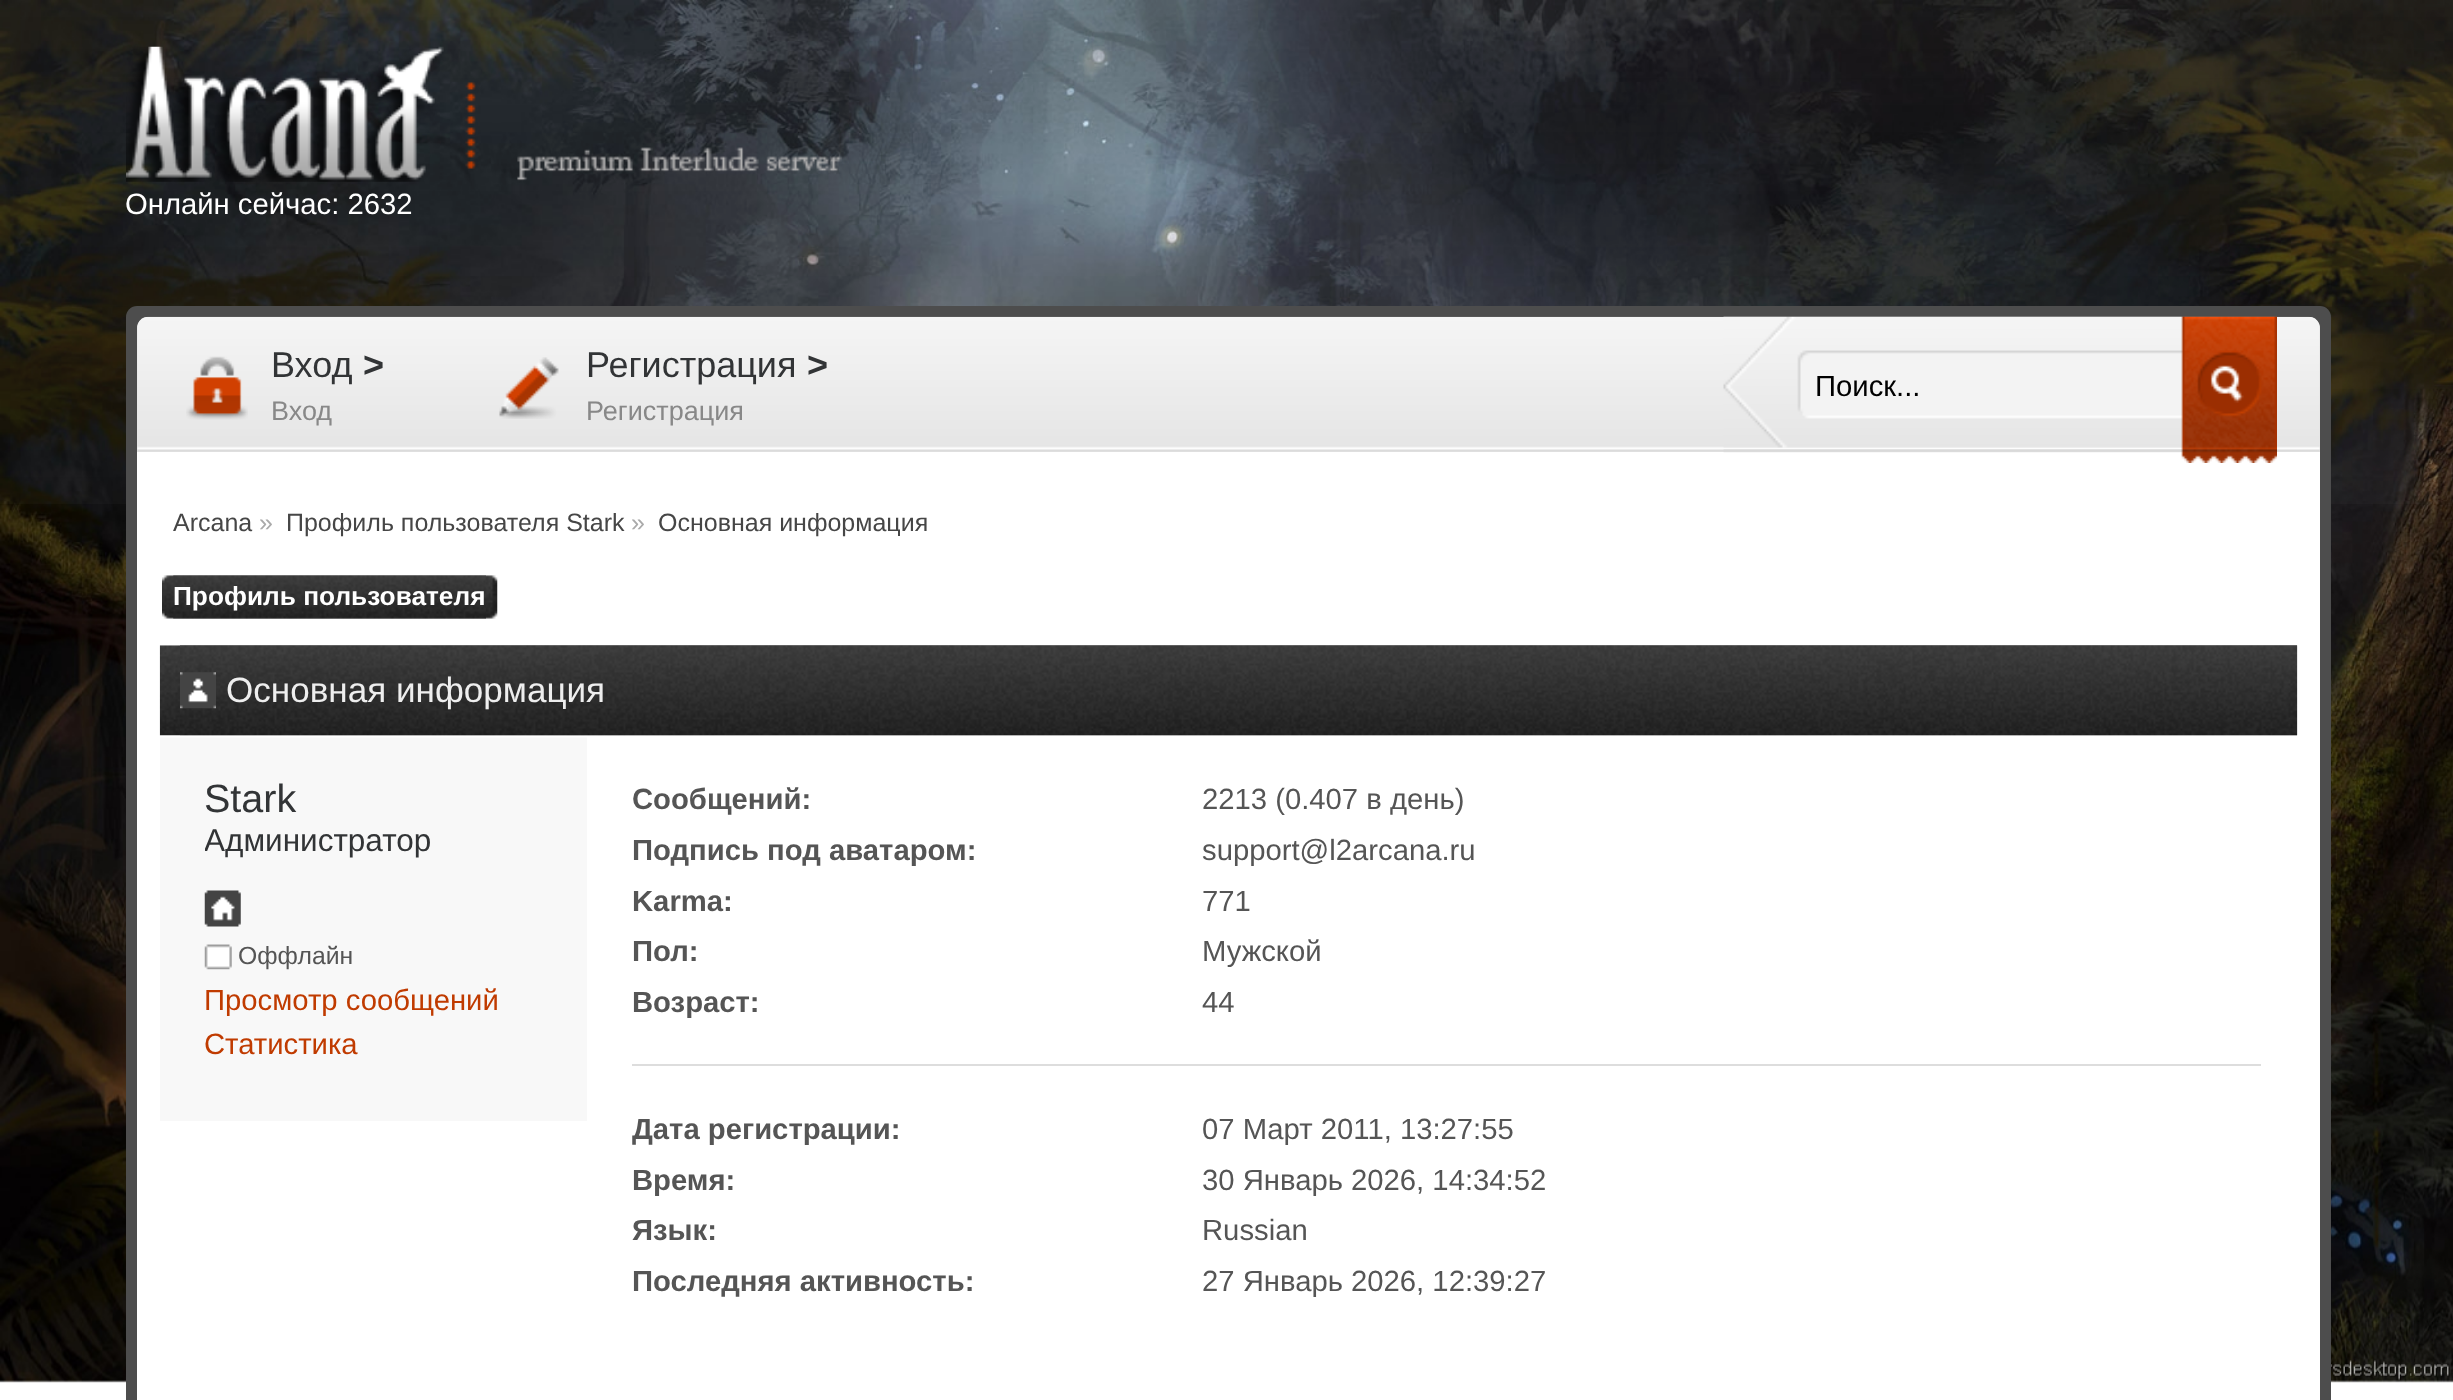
async function draw(canvas) {
  canvas.width = 2453;
  canvas.height = 1400;
  const ctx = canvas.getContext('2d');
  ctx.miterLimit = 4;
  ctx.fontKerning = 'normal';
  function label(s, x, y, font, color) {
    ctx.font = font;
    ctx.fillStyle = color;
    ctx.fillText(s, x, y);
  }
  function rect(x, y, w, h, color) {
    ctx.fillStyle = color;
    ctx.fillRect(x, y, w, h);
  }
  function roundedRect(x, y, w, h, r, color) {
    ctx.fillStyle = color;
    ctx.beginPath();
    ctx.roundRect(x, y, w, h, r);
    ctx.fill();
  }
  async function image(src, x, y, w, h) {
    const img = new Image();
    img.src = src;
    await img.decode();
    ctx.drawImage(img, x, y, w, h);
  }

  rect(0, 0, 2453, 1400, '#fff');
  await image('assets/img1.png', 0, 0, 2453, 1383);
  await image('assets/img2.png', 0, 0, 2453, 504);
  await image('assets/img3.png', 126, 46, 716, 136);
  label('Онлайн сейчас: 2632', 125, 214, '29.25px Liberation Sans', '#fff');
  roundedRect(126, 306, 2205, 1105, 11, '#4d4d4d');
  ctx.fillStyle = '#e5e5e5';
  ctx.beginPath();
  ctx.roundRect(137, 317, 2183, 135, [11, 11, 0, 0]);
  ctx.fill();
  await image('assets/img4.png', 137, 316, 2183, 136);
  await image('assets/img5.png', 186, 356, 62, 64);
  label('Вход', 271, 377, '36px Liberation Sans', '#323436');
  label('>', 363, 377, 'bold 36px Liberation Sans', '#323436');
  label('Вход', 271, 420, '27px Liberation Sans', '#888');
  await image('assets/img6.png', 499, 357, 60, 62);
  label('Регистрация', 586, 377, '36px Liberation Sans', '#323436');
  label('>', 807, 377, 'bold 36px Liberation Sans', '#323436');
  label('Регистрация', 586, 420, '27px Liberation Sans', '#888');
  rect(137, 452, 2183, 948, '#fff');
  await image('assets/img7.png', 1723, 316, 554, 147);
  label('Поиск...', 1815, 396, '29.25px Liberation Sans', '#000');
  label('Arcana', 173, 531, '25px Liberation Sans', '#464646');
  label('»', 259, 531, '25px Liberation Sans', '#aaa');
  label('Профиль пользователя Stark', 286, 531, '25px Liberation Sans', '#464646');
  label('»', 631, 531, '25px Liberation Sans', '#aaa');
  label('Основная информация', 658, 531, '25px Liberation Sans', '#464646');
  await image('assets/img8.png', 173, 575, 325, 44);
  await image('assets/img9.png', 162, 575, 324, 44);
  label('Профиль пользователя', 173, 605, 'bold 26.25px Liberation Sans', '#fff');
  await image('assets/img10.png', 159, 645, 2139, 91);
  await image('assets/img11.png', 180, 645, 2118, 91);
  await image('assets/img12.png', 180, 672, 36, 37);
  label('Основная информация', 226, 702, '35.1px Liberation Sans', '#eee');
  rect(160, 738, 427, 383, '#f8f8f8');
  rect(160, 737, 427, 1, '#fbfbfb');
  label('Stark', 204, 812, '39.5px Liberation Sans', '#323436');
  ctx.save();
  ctx.beginPath();
  ctx.rect(205, 779, 346, 90);
  ctx.clip();
  label('Администратор', 204, 851, '31.5px Liberation Sans', '#323436');
  ctx.restore();
  await image('assets/img13.png', 204, 890, 37, 37);
  await image('assets/img14.png', 204, 944, 28, 26);
  label('Оффлайн', 238, 964, '24.75px Liberation Sans', '#555');
  label('Просмотр сообщений', 204, 1010, '29.25px Liberation Sans', '#c03b00');
  label('Статистика', 204, 1054, '29.25px Liberation Sans', '#c03b00');
  rect(632, 1064, 1629, 2, '#ddd');
  label('Сообщений:', 632, 809, 'bold 29.25px Liberation Sans', '#555');
  label('2213 (0.407 в день)', 1202, 809, '29.25px Liberation Sans', '#555');
  label('Подпись под аватаром:', 632, 860, 'bold 29.25px Liberation Sans', '#555');
  label('support@l2arcana.ru', 1202, 860, '29.25px Liberation Sans', '#555');
  label('Karma:', 632, 911, 'bold 29.25px Liberation Sans', '#555');
  label('771', 1202, 911, '29.25px Liberation Sans', '#555');
  label('Пол:', 632, 961, 'bold 29.25px Liberation Sans', '#555');
  label('Мужской', 1202, 961, '29.25px Liberation Sans', '#555');
  label('Возраст:', 632, 1012, 'bold 29.25px Liberation Sans', '#555');
  label('44', 1202, 1012, '29.25px Liberation Sans', '#555');
  label('Дата регистрации:', 632, 1139, 'bold 29.25px Liberation Sans', '#555');
  label('07 Март 2011, 13:27:55', 1202, 1139, '29.25px Liberation Sans', '#555');
  label('Время:', 632, 1190, 'bold 29.25px Liberation Sans', '#555');
  label('30 Январь 2026, 14:34:52', 1202, 1190, '29.25px Liberation Sans', '#555');
  label('Язык:', 632, 1240, 'bold 29.25px Liberation Sans', '#555');
  label('Russian', 1202, 1240, '29.25px Liberation Sans', '#555');
  label('Последняя активность:', 632, 1291, 'bold 29.25px Liberation Sans', '#555');
  label('27 Январь 2026, 12:39:27', 1202, 1291, '29.25px Liberation Sans', '#555');
}

draw(document.querySelector('canvas'));
